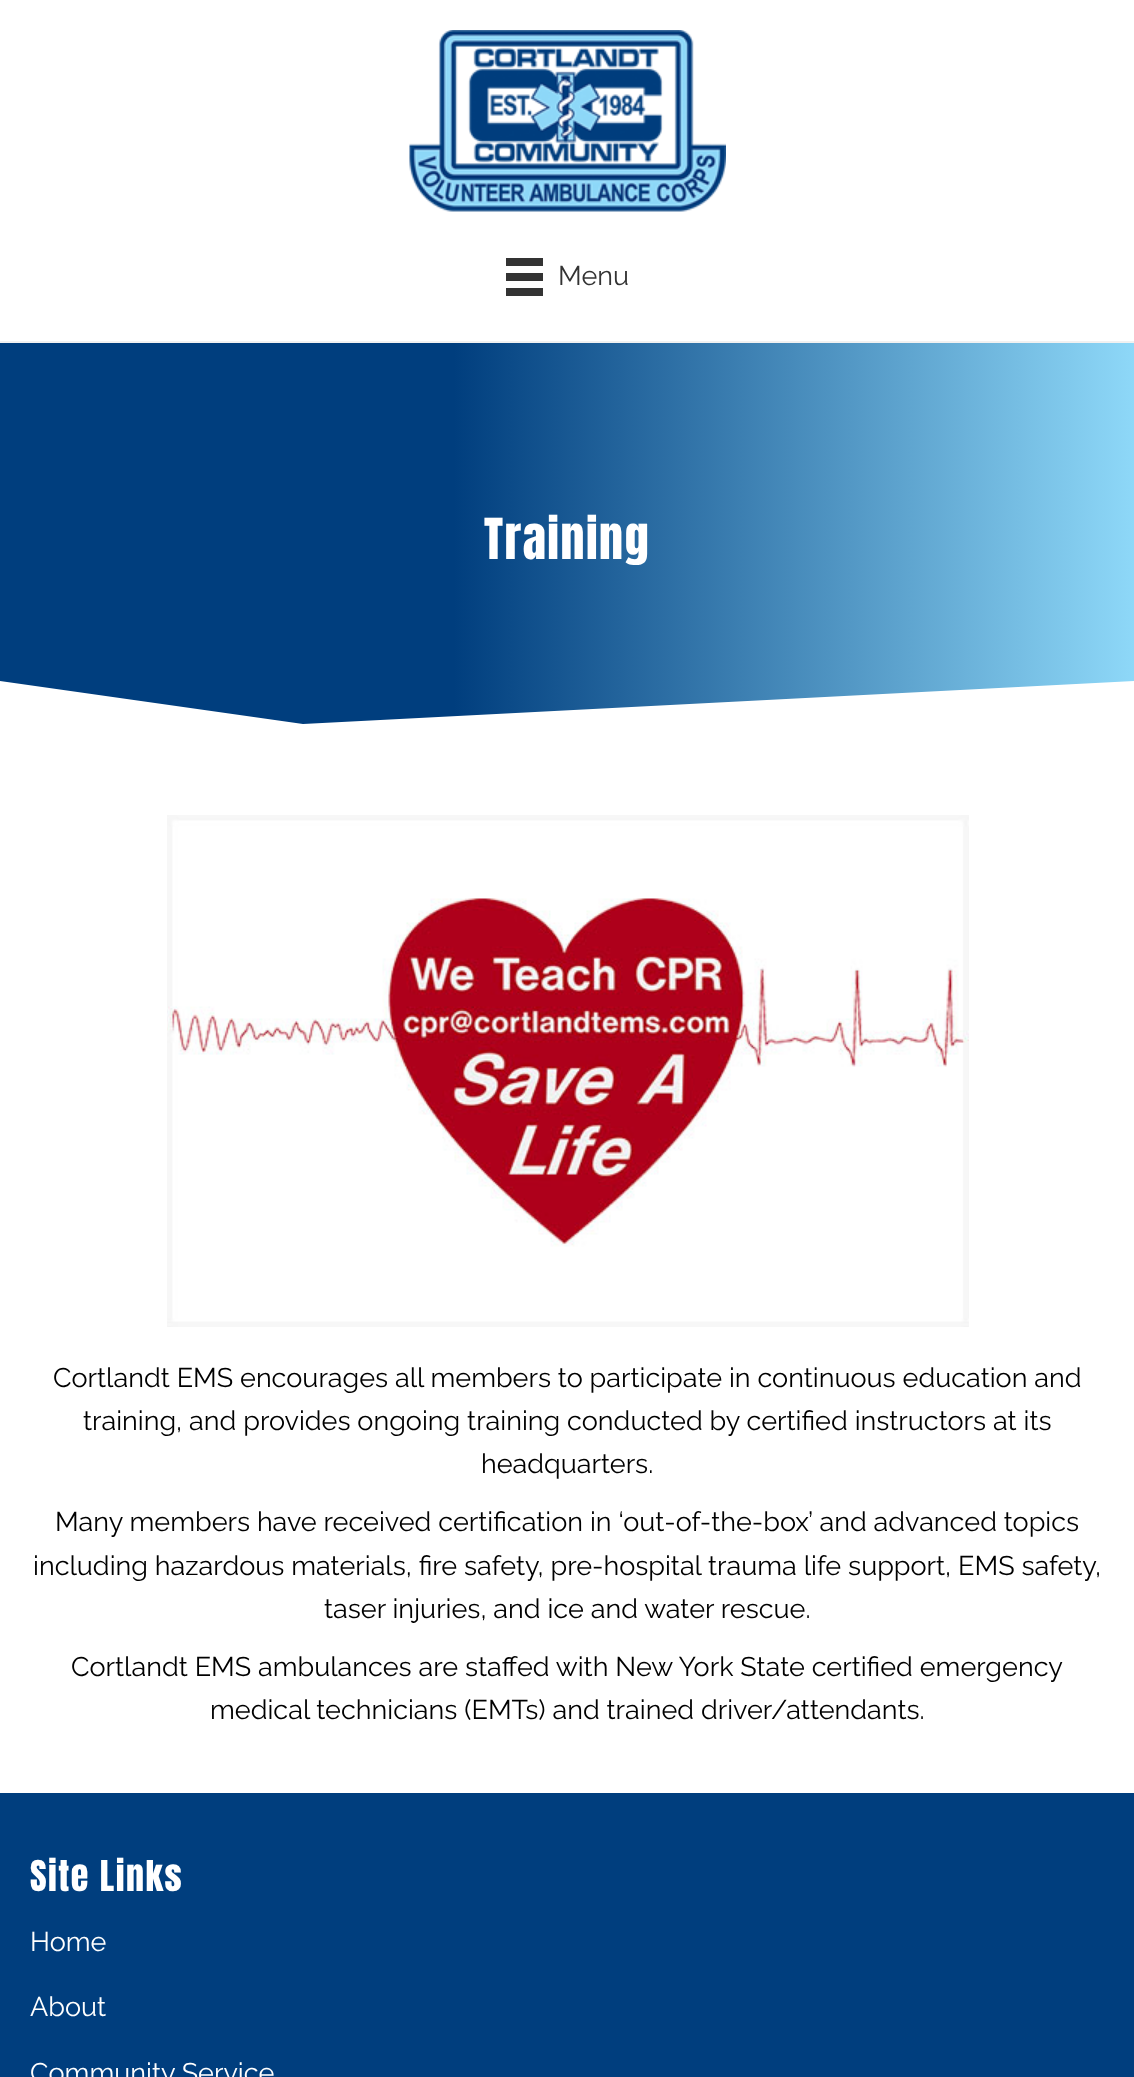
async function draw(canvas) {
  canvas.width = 1134;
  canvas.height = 2077;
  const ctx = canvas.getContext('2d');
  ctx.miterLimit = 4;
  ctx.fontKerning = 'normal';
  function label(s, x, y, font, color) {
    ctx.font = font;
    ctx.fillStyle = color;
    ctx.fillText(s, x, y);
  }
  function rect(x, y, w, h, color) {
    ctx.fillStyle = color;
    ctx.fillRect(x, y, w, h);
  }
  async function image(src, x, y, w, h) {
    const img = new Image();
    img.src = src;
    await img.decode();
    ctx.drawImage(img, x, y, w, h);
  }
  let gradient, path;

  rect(0, 0, 1134, 2077, '#fff');
  rect(0, 341, 1134, 2, '#f1f1f1');
  await image('assets/img1.png', 409, 30, 317, 182);
  rect(506, 258, 37, 8, '#333');
  rect(506, 273, 37, 8, '#333');
  rect(506, 288, 37, 8, '#333');
  label('Menu', 558, 285, '27px Raleway', '#333');
  gradient = ctx.createLinearGradient(0, 541, 1134, 541);
  gradient.addColorStop(0.4, '#003e7e');
  gradient.addColorStop(1, '#8ed8f8');
  ctx.fillStyle = gradient;
  ctx.fillRect(0, 343, 1134, 381);
  ctx.letterSpacing = '1.5px';
  label('Training', 484, 559, '48px Anton', '#fff');
  path = new Path2D('M303 724L0 681V741H1134V681Z');
  ctx.fill(path);
  await image('assets/img2.png', 167, 815, 802, 512);
  ctx.letterSpacing = '0px';
  label('Cortlandt EMS encourages all members to participate in continuous education and', 53, 1387, '27px Raleway', '#000');
  label('training, and provides ongoing training conducted by certified instructors at its', 83, 1430, '27px Raleway', '#000');
  label('headquarters.', 481, 1473, '27px Raleway', '#000');
  label('Many members have received certification in ‘out-of-the-box’ and advanced topics', 55, 1531, '27px Raleway', '#000');
  label('including hazardous materials, fire safety, pre-hospital trauma life support, EMS safety,', 33, 1575, '27px Raleway', '#000');
  label('taser injuries, and ice and water rescue.', 324, 1618, '27px Raleway', '#000');
  label('Cortlandt EMS ambulances are staffed with New York State certified emergency', 71, 1676, '27px Raleway', '#000');
  label('medical technicians (EMTs) and trained driver/attendants.', 210, 1719, '27px Raleway', '#000');
  rect(0, 1793, 1134, 284, '#003e7e');
  ctx.letterSpacing = '1.5px';
  label('Site Links', 30, 1891, '36px Anton', '#fff');
  ctx.letterSpacing = '0px';
  label('Home', 30, 1951, '27px Raleway', '#fff');
  label('About', 30, 2016, '27px Raleway', '#fff');
  label('Community Service', 30, 2082, '27px Raleway', '#fff');
}

draw(document.querySelector('canvas'));
